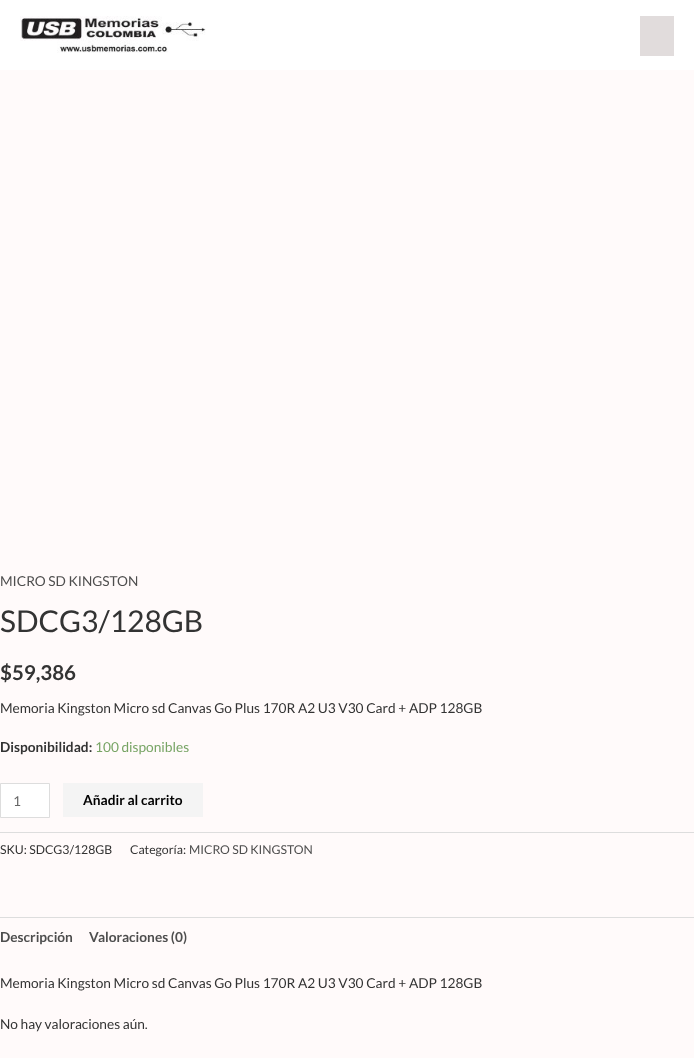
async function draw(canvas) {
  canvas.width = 694;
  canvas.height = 1058;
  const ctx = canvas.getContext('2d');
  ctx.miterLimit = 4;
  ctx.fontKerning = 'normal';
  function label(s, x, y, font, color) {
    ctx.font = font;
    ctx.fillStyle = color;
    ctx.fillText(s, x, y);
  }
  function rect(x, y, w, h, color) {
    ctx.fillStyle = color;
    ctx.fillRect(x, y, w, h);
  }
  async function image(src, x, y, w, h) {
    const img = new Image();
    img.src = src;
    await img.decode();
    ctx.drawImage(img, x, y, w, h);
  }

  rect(0, 0, 694, 1058, '#fffafa');
  rect(0, 0, 694, 70, '#fff');
  await image('assets/img1.png', 20, 16, 186, 37);
  rect(640, 16, 34, 40, '#e1dcdc');
  label('MICRO SD KINGSTON', 0, 586, '13.7px Lato', '#4e4e4e');
  label('SDCG3/128GB', 0, 632, '30px Lato', '#333');
  label('$59,386', 0, 680, 'bold 20.5px Lato', '#333');
  label('Memoria Kingston Micro sd Canvas Go Plus 170R A2 U3 V30 Card + ADP 128GB', 0, 713, '13.7px Lato', '#333');
  label('Disponibilidad:', 0, 752, 'bold 13.7px Lato', '#333');
  label('100 disponibles', 95, 752, '13.7px Lato', '#77a464');
  ctx.fillStyle = '#fff';
  ctx.beginPath();
  ctx.rect(0.5, 783.5, 49, 34);
  ctx.fill();
  ctx.strokeStyle = '#ddd';
  ctx.stroke();
  label('1', 13, 806, '13.7px Lato', '#666');
  rect(63, 783, 140, 34, '#f4f4f4');
  label('Añadir al carrito', 83, 805, 'bold 13.7px Lato', '#000');
  rect(0, 832, 694, 1, '#ddd');
  label('SKU: SDCG3/128GB', 0, 854, '12.25px Lato', '#333');
  label('Categoría:', 130, 854, '12.25px Lato', '#333');
  label('MICRO SD KINGSTON', 189, 854, '12.25px Lato', '#4e4e4e');
  rect(0, 917, 694, 1, '#ddd');
  label('Descripción', 0, 942, 'bold 13.7px Lato', '#4e4e4e');
  label('Valoraciones (0)', 89, 942, 'bold 13.7px Lato', '#4e4e4e');
  label('Memoria Kingston Micro sd Canvas Go Plus 170R A2 U3 V30 Card + ADP 128GB', 0, 988, '13.7px Lato', '#333');
  label('No hay valoraciones aún.', 0, 1029, '13.7px Lato', '#333');
}

draw(document.querySelector('canvas'));
